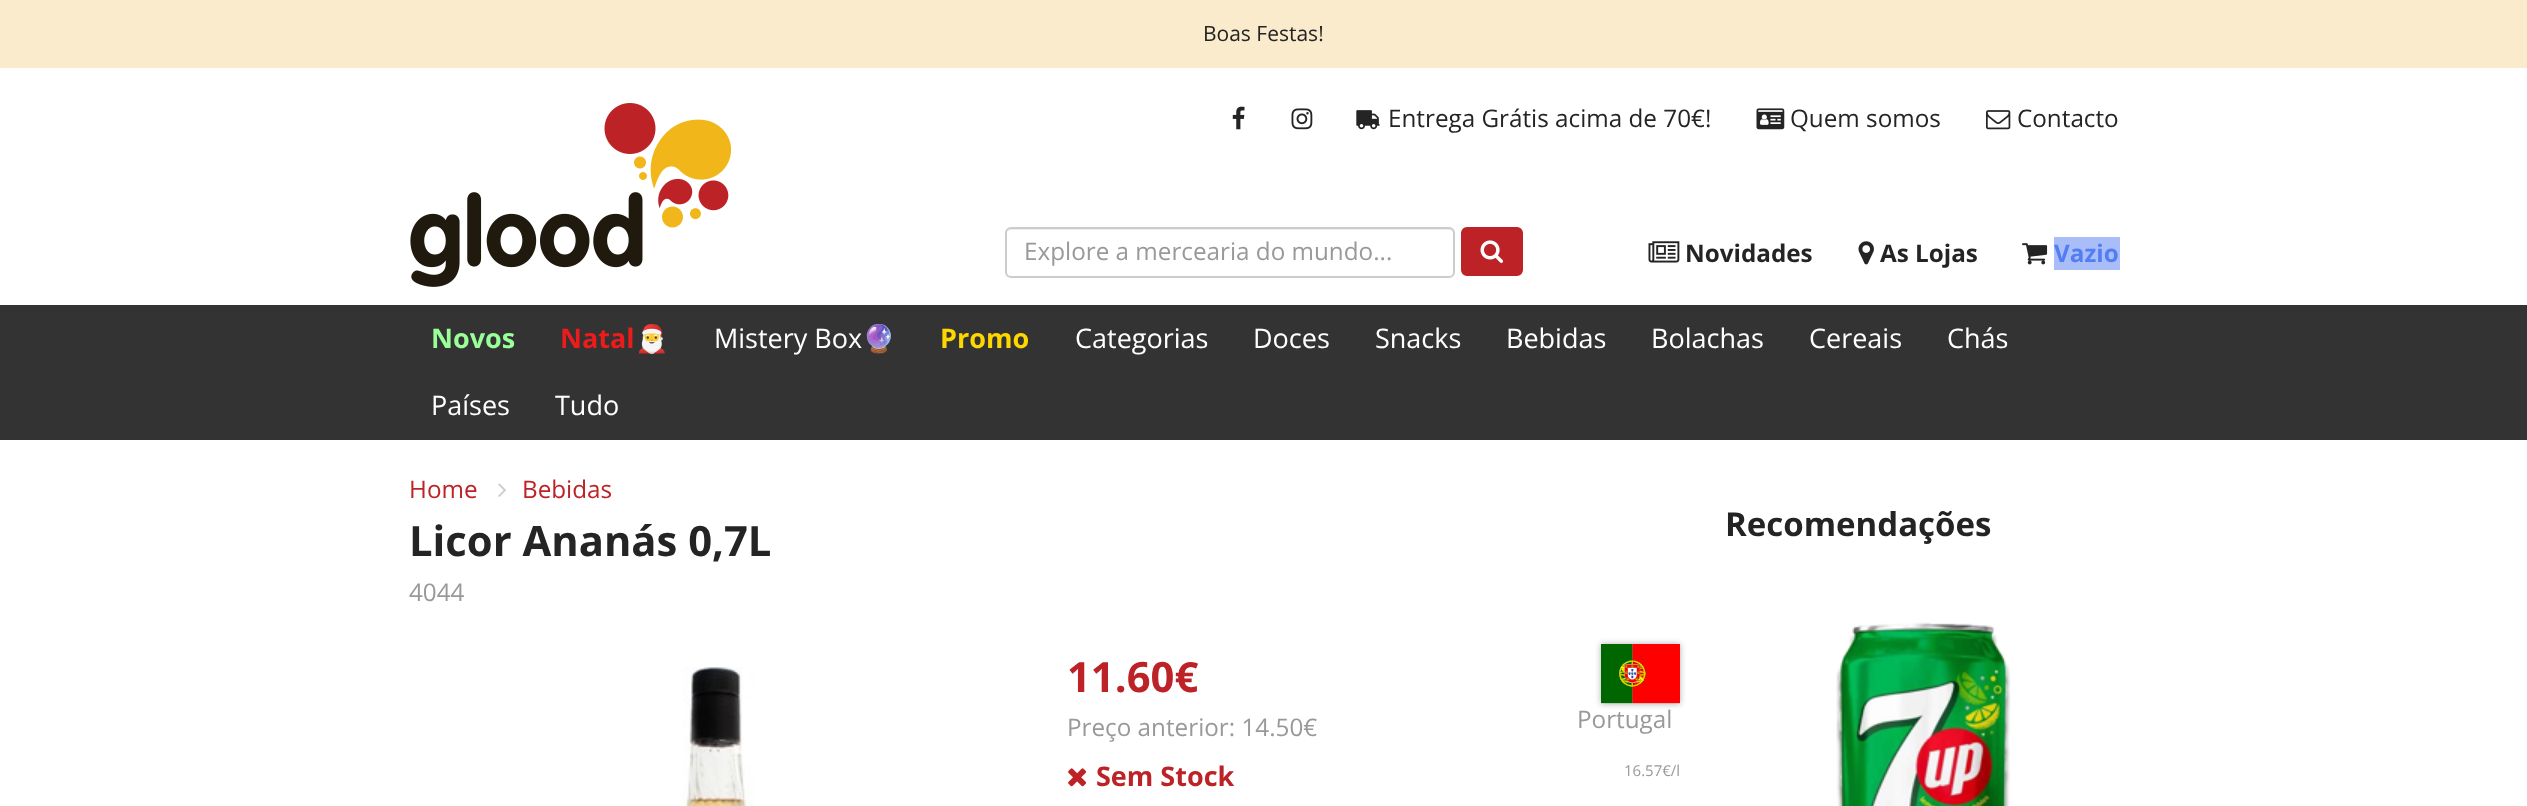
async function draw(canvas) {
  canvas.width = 2527;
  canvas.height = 806;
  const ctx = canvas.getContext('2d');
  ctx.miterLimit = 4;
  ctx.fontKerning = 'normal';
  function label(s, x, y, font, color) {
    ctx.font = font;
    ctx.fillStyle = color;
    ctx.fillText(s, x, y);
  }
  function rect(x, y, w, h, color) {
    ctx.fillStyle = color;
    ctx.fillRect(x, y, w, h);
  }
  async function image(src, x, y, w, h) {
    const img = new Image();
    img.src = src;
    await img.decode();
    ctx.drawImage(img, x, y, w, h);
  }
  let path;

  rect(0, 0, 2527, 806, '#fff');
  rect(0, 0, 2527, 68, '#faebcc');
  label('Boas Festas!', 1203, 41, '21px Open Sans', '#242424');
  await image('assets/img1.png', 410, 103, 321, 184);
  await image('assets/img2.png', 1232, 106, 13, 24);
  await image('assets/img3.png', 1291, 108, 22, 22);
  await image('assets/img4.png', 1356, 110, 24, 20);
  label('Entrega Grátis acima de 70€!', 1388, 127, '24.25px Open Sans', '#242424');
  await image('assets/img5.png', 1756, 108, 29, 22);
  label('Quem somos', 1790, 127, '24.25px Open Sans', '#242424');
  await image('assets/img6.png', 1986, 110, 25, 20);
  label('Contacto', 2017, 127, '24.25px Open Sans', '#242424');
  ctx.fillStyle = '#ececec';
  path = new Path2D('M1011 230H1449C1451 230 1454 232 1454 234V233C1454 230 1452 228 1449 228H1012C1010 228 1008 230 1007 232C1008 231 1010 230 1011 230Z');
  ctx.fill(path);
  ctx.beginPath();
  ctx.roundRect(1006, 228, 448, 49, 5);
  ctx.strokeStyle = '#ccc';
  ctx.lineWidth = 2;
  ctx.stroke();
  label('Explore a mercearia do mundo...', 1024, 260, '24.25px Open Sans', '#999');
  ctx.fillStyle = '#bc2226';
  ctx.beginPath();
  ctx.roundRect(1462, 228, 60, 47, 5);
  ctx.fill();
  ctx.strokeStyle = '#bc2226';
  ctx.stroke();
  await image('assets/img7.png', 1480, 240, 23, 23);
  await image('assets/img8.png', 1648, 241, 32, 22);
  label('Novidades', 1685, 262, 'bold 24.25px Open Sans', '#242424');
  await image('assets/img9.png', 1858, 241, 16, 24);
  label('As Lojas', 1880, 262, 'bold 24.25px Open Sans', '#242424');
  await image('assets/img10.png', 2022, 243, 26, 22);
  rect(2054, 237, 66, 33, '#a9bef9');
  label('Vazio', 2054, 262, 'bold 24.25px Open Sans', '#527df3');
  rect(0, 305, 2527, 135, '#333');
  label('Novos', 431, 348, 'bold 27px Open Sans', '#9f9');
  label('Natal', 560, 348, 'bold 27px Open Sans', '#ee1b1b');
  label('🎅', 635, 348, 'bold 27px Noto Color Emoji', '#ee1b1b');
  label('Mistery Box', 714, 348, '27px Open Sans', '#fff');
  label('🔮', 862, 348, '27px Noto Color Emoji', '#fff');
  label('Promo', 940, 348, 'bold 27px Open Sans', '#ffd700');
  label('Categorias', 1075, 348, '27px Open Sans', '#fff');
  label('Doces', 1253, 348, '27px Open Sans', '#fff');
  label('Snacks', 1375, 348, '27px Open Sans', '#fff');
  label('Bebidas', 1506, 348, '27px Open Sans', '#fff');
  label('Bolachas', 1651, 348, '27px Open Sans', '#fff');
  label('Cereais', 1809, 348, '27px Open Sans', '#fff');
  label('Chás', 1947, 348, '27px Open Sans', '#fff');
  label('Países', 431, 415, '27px Open Sans', '#fff');
  label('Tudo', 555, 415, '27px Open Sans', '#fff');
  label('Home', 409, 498, '24.25px Open Sans', '#bc2226');
  await image('assets/img11.png', 498, 483, 8, 14);
  label('Bebidas', 522, 498, '24.25px Open Sans', '#bc2226');
  label('Licor Ananás 0,7L', 409, 556, 'bold 41.75px Open Sans', '#242424');
  label('4044', 409, 601, '24.25px Open Sans', '#999');
  await image('assets/img12.png', 682, 667, 73, 139);
  label('11.60€', 1067, 692, 'bold 41.75px Open Sans', '#bc2226');
  label('Preço anterior: 14.50€', 1067, 736, '24.25px Open Sans', '#999');
  ctx.fillStyle = '#0000004d';
  ctx.filter = 'blur(3px)';
  ctx.beginPath();
  ctx.rect(1601, 644, 79, 60);
  ctx.fill();
  ctx.filter = 'none';
  await image('assets/img13.png', 1601, 644, 79, 60);
  label('Portugal', 1577, 728, '24.25px Open Sans', '#999');
  await image('assets/img14.png', 1068, 768, 18, 19);
  label('Sem Stock', 1096, 786, 'bold 27px Open Sans', '#bc2226');
  label('16.57€/l', 1624, 776, '15px Open Sans', '#999');
  label('Recomendações', 1725, 536, 'bold 33px Open Sans', '#242424');
  await image('assets/img15.png', 1836, 622, 175, 184);
}

draw(document.querySelector('canvas'));
